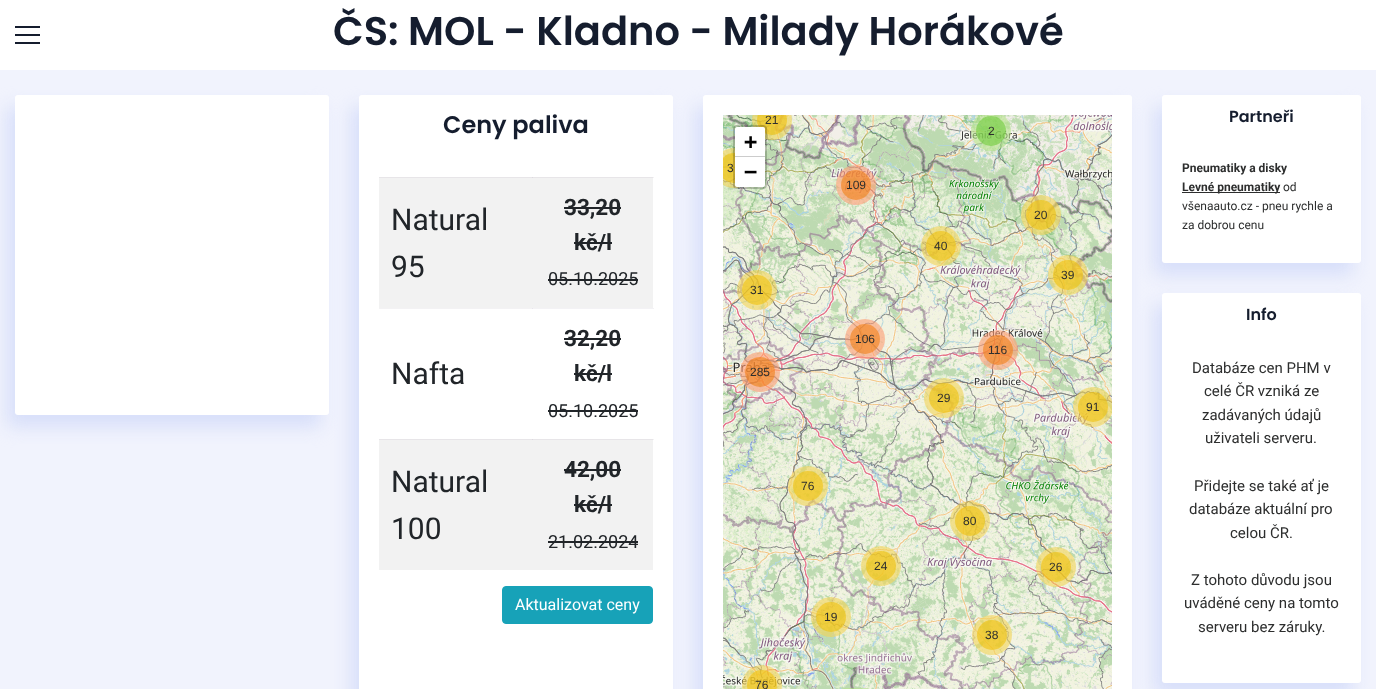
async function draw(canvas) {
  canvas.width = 1376;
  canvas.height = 689;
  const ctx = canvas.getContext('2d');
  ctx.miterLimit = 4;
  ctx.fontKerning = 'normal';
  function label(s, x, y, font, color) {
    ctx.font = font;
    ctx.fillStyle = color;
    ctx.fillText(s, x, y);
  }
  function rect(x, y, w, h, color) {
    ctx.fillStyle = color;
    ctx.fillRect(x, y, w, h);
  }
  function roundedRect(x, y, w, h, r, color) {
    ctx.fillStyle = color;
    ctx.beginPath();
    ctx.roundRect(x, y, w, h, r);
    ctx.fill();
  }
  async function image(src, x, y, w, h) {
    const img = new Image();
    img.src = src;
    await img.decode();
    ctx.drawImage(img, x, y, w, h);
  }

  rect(0, 0, 1376, 689, '#f1f3fd');
  rect(0, 0, 1376, 70, '#fff');
  rect(15, 26, 25, 2, '#151d2e');
  rect(15, 42, 25, 2, '#151d2e');
  rect(15, 34, 25, 2, '#151d2e');
  label('ČS: MOL - Kladno - Milady Horákové', 333, 45, '600 40px Poppins', '#151d2e');
  ctx.fillStyle = '#d1daf9cc';
  ctx.filter = 'blur(9px)';
  ctx.beginPath();
  ctx.roundRect(7, 107, 314, 320, 3);
  ctx.fill();
  ctx.filter = 'none';
  roundedRect(15, 95, 314, 320, 3, '#fff');
  ctx.fillStyle = '#d1daf9cc';
  ctx.filter = 'blur(9px)';
  ctx.beginPath();
  ctx.roundRect(351, 107, 314, 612, 3);
  ctx.fill();
  ctx.filter = 'none';
  roundedRect(359, 95, 314, 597, 3, '#fff');
  rect(653, 177, 1, 1, '#f3f2f4');
  rect(379, 308, 154, 1, '#f3f2f4');
  rect(653, 439, 1, 1, '#f3f2f4');
  label('Ceny paliva', 443, 133, '600 24px Poppins', '#151d2e');
  rect(379, 178, 274, 130, '#f2f2f2');
  rect(379, 177, 274, 1, '#e7e5e8');
  rect(532, 177, 1, 1, '#ddd9df');
  label('Natural', 391, 230, '30px Roboto', '#212529');
  label('95', 391, 277, '30px Roboto', '#212529');
  label('33,20', 564, 215, 'bold 22.5px Roboto', '#212529');
  rect(564, 207, 57, 2, '#212529');
  label('kč/l', 574, 250, 'bold 22.5px Roboto', '#212529');
  rect(574, 242, 38, 2, '#212529');
  label('05.10.2025', 548, 285, '18px Roboto', '#212529');
  rect(548, 279, 90, 2, '#212529');
  label('Nafta', 391, 384, '30px Roboto', '#212529');
  rect(532, 308, 122, 1, '#f3f2f5');
  rect(532, 308, 1, 1, '#e8e5eb');
  label('32,20', 564, 346, 'bold 22.5px Roboto', '#212529');
  rect(564, 338, 57, 2, '#212529');
  label('kč/l', 574, 381, 'bold 22.5px Roboto', '#212529');
  rect(574, 373, 38, 2, '#212529');
  label('05.10.2025', 548, 417, '18px Roboto', '#212529');
  rect(548, 410, 90, 2, '#212529');
  rect(379, 440, 274, 130, '#f2f2f2');
  rect(379, 439, 274, 1, '#e7e5e8');
  rect(532, 439, 1, 1, '#ddd9df');
  label('Natural', 391, 492, '30px Roboto', '#212529');
  label('100', 391, 539, '30px Roboto', '#212529');
  label('42,00', 564, 477, 'bold 22.5px Roboto', '#212529');
  rect(564, 469, 57, 2, '#212529');
  label('kč/l', 574, 512, 'bold 22.5px Roboto', '#212529');
  rect(574, 504, 38, 2, '#212529');
  label('21.02.2024', 548, 548, '18px Roboto', '#212529');
  rect(548, 541, 90, 2, '#212529');
  ctx.fillStyle = '#17a2b8';
  ctx.beginPath();
  ctx.roundRect(502.5, 586.5, 150, 37, 3.5);
  ctx.fill();
  ctx.strokeStyle = '#17a2b8';
  ctx.stroke();
  label('Aktualizovat ceny', 515, 610, '16px Roboto', '#fff');
  ctx.fillStyle = '#d1daf9cc';
  ctx.filter = 'blur(9px)';
  ctx.beginPath();
  ctx.roundRect(695, 107, 429, 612, 3);
  ctx.fill();
  ctx.filter = 'none';
  roundedRect(703, 95, 429, 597, 3, '#fff');
  await image('assets/img1.png', 723, 115, 218, 67);
  await image('assets/img2.png', 941, 115, 171, 67);
  await image('assets/img3.png', 723, 182, 218, 256);
  await image('assets/img4.png', 941, 182, 171, 256);
  await image('assets/img5.png', 723, 438, 218, 251);
  await image('assets/img6.png', 941, 438, 171, 251);
  ctx.save();
  ctx.beginPath();
  ctx.rect(723, 115, 389, 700);
  ctx.clip();
  ctx.fillStyle = '#f1d35799';
  ctx.beginPath();
  ctx.arc(772, 120, 20, 0, 2 * Math.PI);
  ctx.fill();
  ctx.fillStyle = '#f0c20c99';
  ctx.beginPath();
  ctx.arc(772, 120, 15, 0, 2 * Math.PI);
  ctx.fill();
  ctx.restore();
  label('21', 765, 124, '12px Liberation Sans', '#2d2e2e');
  ctx.save();
  ctx.beginPath();
  ctx.rect(723, 115, 389, 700);
  ctx.clip();
  ctx.fillStyle = '#b5e28c99';
  ctx.beginPath();
  ctx.arc(991, 131, 20, 0, 2 * Math.PI);
  ctx.fill();
  ctx.restore();
  ctx.fillStyle = '#6ecc3999';
  ctx.beginPath();
  ctx.arc(991, 131, 15, 0, 2 * Math.PI);
  ctx.fill();
  label('2', 988, 135, '12px Liberation Sans', '#2d2e2e');
  ctx.save();
  ctx.beginPath();
  ctx.rect(723, 115, 389, 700);
  ctx.clip();
  ctx.fillStyle = '#f1d35799';
  ctx.beginPath();
  ctx.arc(734, 168, 20, 0, 2 * Math.PI);
  ctx.fill();
  ctx.fillStyle = '#f0c20c99';
  ctx.beginPath();
  ctx.arc(734, 168, 15, 0, 2 * Math.PI);
  ctx.fill();
  ctx.restore();
  label('3', 727, 172, '12px Liberation Sans', '#2d2e2e');
  ctx.fillStyle = '#fd9c7399';
  ctx.beginPath();
  ctx.arc(856, 185, 20, 0, 2 * Math.PI);
  ctx.fill();
  ctx.fillStyle = '#f1801799';
  ctx.beginPath();
  ctx.arc(856, 185, 15, 0, 2 * Math.PI);
  ctx.fill();
  label('109', 846, 189, '12px Liberation Sans', '#2d2e2e');
  ctx.fillStyle = '#f1d35799';
  ctx.beginPath();
  ctx.arc(1041, 215, 20, 0, 2 * Math.PI);
  ctx.fill();
  ctx.fillStyle = '#f0c20c99';
  ctx.beginPath();
  ctx.arc(1041, 215, 15, 0, 2 * Math.PI);
  ctx.fill();
  label('20', 1034, 219, '12px Liberation Sans', '#2d2e2e');
  ctx.fillStyle = '#f1d35799';
  ctx.beginPath();
  ctx.arc(941, 246, 20, 0, 2 * Math.PI);
  ctx.fill();
  ctx.fillStyle = '#f0c20c99';
  ctx.beginPath();
  ctx.arc(941, 246, 15, 0, 2 * Math.PI);
  ctx.fill();
  label('40', 934, 250, '12px Liberation Sans', '#2d2e2e');
  ctx.fillStyle = '#f1d35799';
  ctx.beginPath();
  ctx.arc(1068, 275, 20, 0, 2 * Math.PI);
  ctx.fill();
  ctx.fillStyle = '#f0c20c99';
  ctx.beginPath();
  ctx.arc(1068, 275, 15, 0, 2 * Math.PI);
  ctx.fill();
  label('39', 1061, 279, '12px Liberation Sans', '#2d2e2e');
  ctx.fillStyle = '#f1d35799';
  ctx.beginPath();
  ctx.arc(757, 290, 20, 0, 2 * Math.PI);
  ctx.fill();
  ctx.fillStyle = '#f0c20c99';
  ctx.beginPath();
  ctx.arc(757, 290, 15, 0, 2 * Math.PI);
  ctx.fill();
  label('31', 750, 294, '12px Liberation Sans', '#2d2e2e');
  ctx.fillStyle = '#fd9c7399';
  ctx.beginPath();
  ctx.arc(865, 339, 20, 0, 2 * Math.PI);
  ctx.fill();
  ctx.fillStyle = '#f1801799';
  ctx.beginPath();
  ctx.arc(865, 339, 15, 0, 2 * Math.PI);
  ctx.fill();
  label('106', 855, 343, '12px Liberation Sans', '#2d2e2e');
  ctx.fillStyle = '#fd9c7399';
  ctx.beginPath();
  ctx.arc(998, 350, 20, 0, 2 * Math.PI);
  ctx.fill();
  ctx.fillStyle = '#f1801799';
  ctx.beginPath();
  ctx.arc(998, 350, 15, 0, 2 * Math.PI);
  ctx.fill();
  label('116', 988, 354, '12px Liberation Sans', '#2d2e2e');
  ctx.fillStyle = '#fd9c7399';
  ctx.beginPath();
  ctx.arc(760, 372, 20, 0, 2 * Math.PI);
  ctx.fill();
  ctx.fillStyle = '#f1801799';
  ctx.beginPath();
  ctx.arc(760, 372, 15, 0, 2 * Math.PI);
  ctx.fill();
  label('285', 750, 376, '12px Liberation Sans', '#2d2e2e');
  ctx.fillStyle = '#f1d35799';
  ctx.beginPath();
  ctx.arc(944, 398, 20, 0, 2 * Math.PI);
  ctx.fill();
  ctx.fillStyle = '#f0c20c99';
  ctx.beginPath();
  ctx.arc(944, 398, 15, 0, 2 * Math.PI);
  ctx.fill();
  label('29', 937, 402, '12px Liberation Sans', '#2d2e2e');
  ctx.save();
  ctx.beginPath();
  ctx.rect(723, 115, 389, 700);
  ctx.clip();
  ctx.fillStyle = '#f1d35799';
  ctx.beginPath();
  ctx.arc(1093, 407, 20, 0, 2 * Math.PI);
  ctx.fill();
  ctx.restore();
  ctx.fillStyle = '#f0c20c99';
  ctx.beginPath();
  ctx.arc(1093, 407, 15, 0, 2 * Math.PI);
  ctx.fill();
  label('91', 1086, 411, '12px Liberation Sans', '#2d2e2e');
  ctx.fillStyle = '#f1d35799';
  ctx.beginPath();
  ctx.arc(808, 486, 20, 0, 2 * Math.PI);
  ctx.fill();
  ctx.fillStyle = '#f0c20c99';
  ctx.beginPath();
  ctx.arc(808, 486, 15, 0, 2 * Math.PI);
  ctx.fill();
  label('76', 801, 490, '12px Liberation Sans', '#2d2e2e');
  ctx.fillStyle = '#f1d35799';
  ctx.beginPath();
  ctx.arc(970, 521, 20, 0, 2 * Math.PI);
  ctx.fill();
  ctx.fillStyle = '#f0c20c99';
  ctx.beginPath();
  ctx.arc(970, 521, 15, 0, 2 * Math.PI);
  ctx.fill();
  label('80', 963, 525, '12px Liberation Sans', '#2d2e2e');
  ctx.fillStyle = '#f1d35799';
  ctx.beginPath();
  ctx.arc(881, 566, 20, 0, 2 * Math.PI);
  ctx.fill();
  ctx.fillStyle = '#f0c20c99';
  ctx.beginPath();
  ctx.arc(881, 566, 15, 0, 2 * Math.PI);
  ctx.fill();
  label('24', 874, 570, '12px Liberation Sans', '#2d2e2e');
  ctx.fillStyle = '#f1d35799';
  ctx.beginPath();
  ctx.arc(1056, 567, 20, 0, 2 * Math.PI);
  ctx.fill();
  ctx.fillStyle = '#f0c20c99';
  ctx.beginPath();
  ctx.arc(1056, 567, 15, 0, 2 * Math.PI);
  ctx.fill();
  label('26', 1049, 571, '12px Liberation Sans', '#2d2e2e');
  ctx.fillStyle = '#f1d35799';
  ctx.beginPath();
  ctx.arc(831, 617, 20, 0, 2 * Math.PI);
  ctx.fill();
  ctx.fillStyle = '#f0c20c99';
  ctx.beginPath();
  ctx.arc(831, 617, 15, 0, 2 * Math.PI);
  ctx.fill();
  label('19', 824, 621, '12px Liberation Sans', '#2d2e2e');
  ctx.fillStyle = '#f1d35799';
  ctx.beginPath();
  ctx.arc(992, 635, 20, 0, 2 * Math.PI);
  ctx.fill();
  ctx.fillStyle = '#f0c20c99';
  ctx.beginPath();
  ctx.arc(992, 635, 15, 0, 2 * Math.PI);
  ctx.fill();
  label('38', 985, 639, '12px Liberation Sans', '#2d2e2e');
  ctx.fillStyle = '#f1d35799';
  ctx.beginPath();
  ctx.arc(762, 685, 20, 0, 2 * Math.PI);
  ctx.fill();
  ctx.fillStyle = '#f0c20c99';
  ctx.beginPath();
  ctx.arc(762, 685, 15, 0, 2 * Math.PI);
  ctx.fill();
  label('76', 755, 689, '12px Liberation Sans', '#2d2e2e');
  roundedRect(836, 688, 40, 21, 20, '#b5e28c99');
  ctx.beginPath();
  ctx.roundRect(734, 126, 32, 62, 3);
  ctx.strokeStyle = '#00000033';
  ctx.lineWidth = 2;
  ctx.stroke();
  ctx.fillStyle = '#fff';
  ctx.beginPath();
  ctx.roundRect(735, 127, 30, 30, [2, 2, 0, 0]);
  ctx.fill();
  rect(735, 156, 30, 1, '#ccc');
  label('+', 744, 149, 'bold 22px DejaVu Sans Mono', '#000');
  ctx.fillStyle = '#fff';
  ctx.beginPath();
  ctx.roundRect(735, 157, 30, 30, [0, 0, 2, 2]);
  ctx.fill();
  label('−', 744, 179, 'bold 22px DejaVu Sans Mono', '#000');
  ctx.fillStyle = '#d1daf9cc';
  ctx.filter = 'blur(9px)';
  ctx.beginPath();
  ctx.roundRect(1154, 107, 199, 168, 3);
  ctx.fill();
  ctx.filter = 'none';
  roundedRect(1162, 95, 199, 168, 3, '#fff');
  label('Partneři', 1229, 122, '600 16px Poppins', '#151d2e');
  label('Pneumatiky a disky', 1182, 172, 'bold 12px Roboto', '#2d2e2e');
  rect(1182, 192, 98, 1, '#2d2e2e');
  label('Levné pneumatiky', 1182, 191, 'bold 12px Roboto', '#2d2e2e');
  label('od', 1283, 191, '12px Roboto', '#2d2e2e');
  label('všenaauto.cz - pneu rychle a', 1182, 210, '12px Roboto', '#2d2e2e');
  label('za dobrou cenu', 1182, 229, '12px Roboto', '#2d2e2e');
  ctx.fillStyle = '#d1daf9cc';
  ctx.filter = 'blur(9px)';
  ctx.beginPath();
  ctx.roundRect(1154, 305, 199, 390, 3);
  ctx.fill();
  ctx.filter = 'none';
  roundedRect(1162, 293, 199, 390, 3, '#fff');
  label('Info', 1246, 320, '600 16px Poppins', '#151d2e');
  label('Databáze cen PHM v', 1192, 373, '15px Roboto', '#2d2e2e');
  label('celé ČR vzniká ze', 1204, 396, '15px Roboto', '#2d2e2e');
  label('zadávaných údajů', 1202, 420, '15px Roboto', '#2d2e2e');
  label('uživateli serveru.', 1205, 443, '15px Roboto', '#2d2e2e');
  label('Přidejte se také ať je', 1194, 491, '15px Roboto', '#2d2e2e');
  label('databáze aktuální pro', 1189, 514, '15px Roboto', '#2d2e2e');
  label('celou ČR.', 1230, 538, '15px Roboto', '#2d2e2e');
  label('Z tohoto důvodu jsou', 1191, 585, '15px Roboto', '#2d2e2e');
  label('uváděné ceny na tomto', 1184, 608, '15px Roboto', '#2d2e2e');
  label('serveru bez záruky.', 1198, 632, '15px Roboto', '#2d2e2e');
}

draw(document.querySelector('canvas'));
